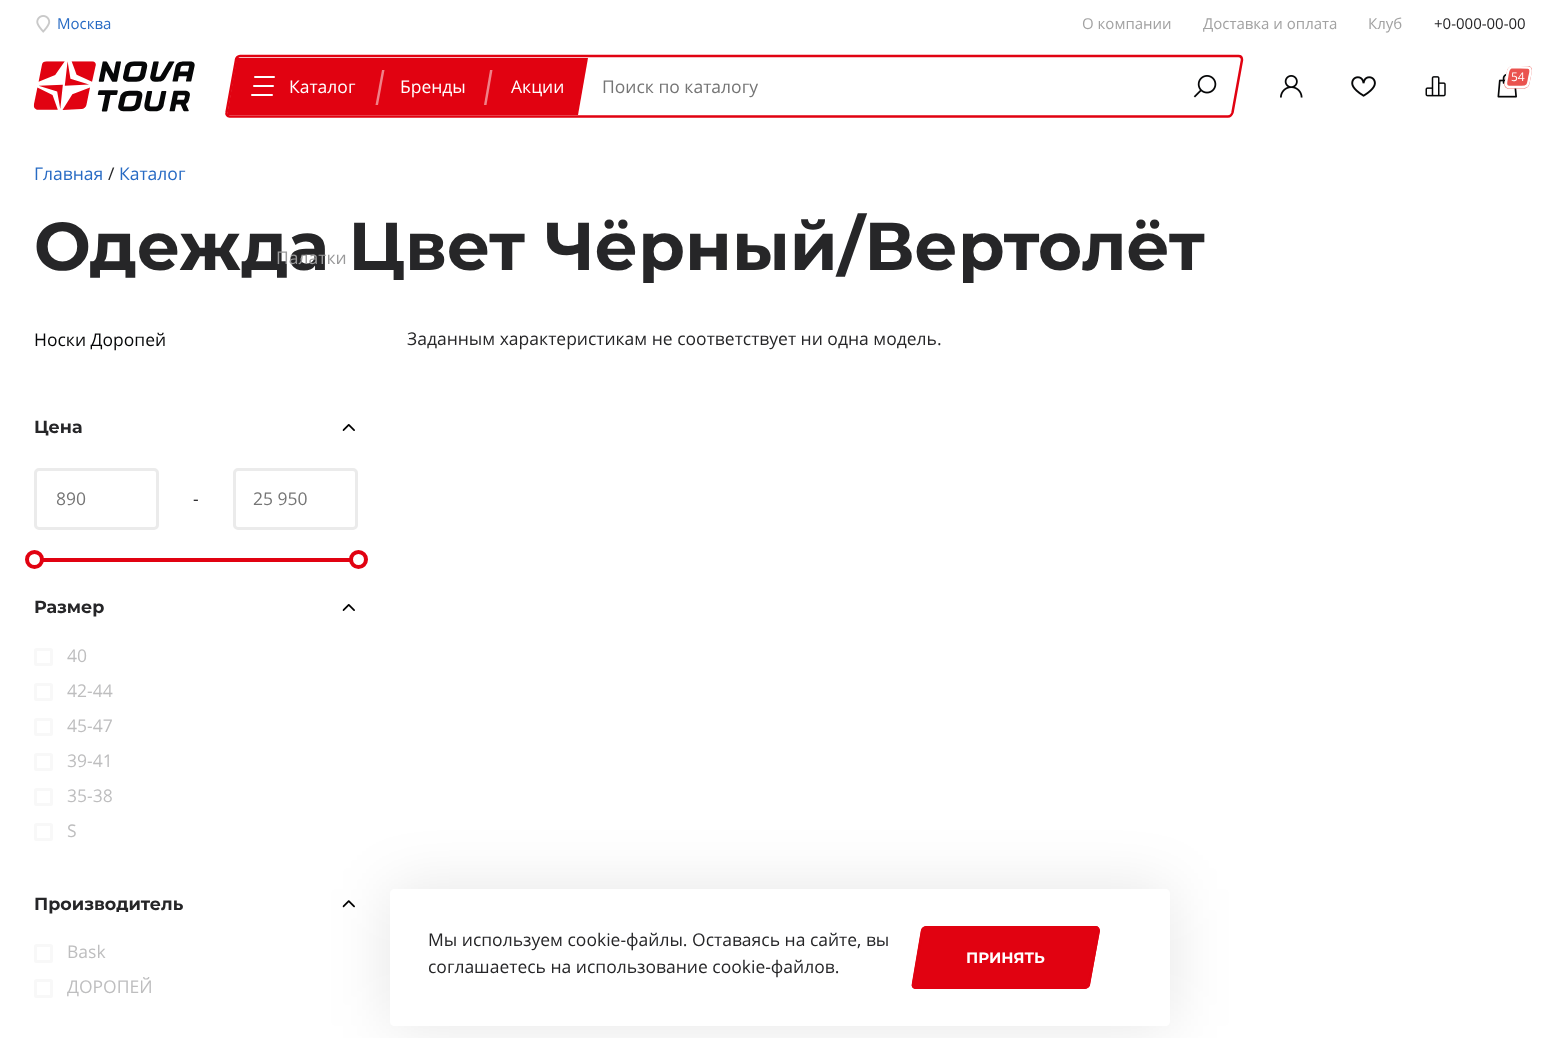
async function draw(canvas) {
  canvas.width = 1560;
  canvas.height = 1038;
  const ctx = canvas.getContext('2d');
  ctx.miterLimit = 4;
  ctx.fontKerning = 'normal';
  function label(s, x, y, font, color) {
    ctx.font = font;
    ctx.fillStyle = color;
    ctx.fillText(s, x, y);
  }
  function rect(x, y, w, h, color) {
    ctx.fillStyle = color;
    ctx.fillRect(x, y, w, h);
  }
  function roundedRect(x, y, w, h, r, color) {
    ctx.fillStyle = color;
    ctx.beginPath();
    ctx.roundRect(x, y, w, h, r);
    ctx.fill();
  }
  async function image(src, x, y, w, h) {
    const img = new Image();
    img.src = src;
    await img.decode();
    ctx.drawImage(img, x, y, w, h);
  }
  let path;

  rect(0, 0, 1560, 1038, '#fff');
  await image('assets/img1.png', 36, 15, 15, 18);
  label('Москва', 57, 29, '15px Open Sans', '#286bc4');
  label('О компании', 1082, 29, '15px Open Sans', '#a2a2a2');
  label('Доставка и оплата', 1203, 29, '15px Open Sans', '#a2a2a2');
  label('Клуб', 1368, 29, '15px Open Sans', '#a2a2a2');
  label('+0-000-00-00', 1434, 29, '15px Open Sans', '#262628');
  await image('assets/img2.png', 33, 61, 162, 51);
  await image('assets/img3.png', 1280, 75, 23, 23);
  await image('assets/img4.png', 1351, 76, 25, 21);
  await image('assets/img5.png', 1425, 76, 21, 21);
  await image('assets/img6.png', 1497, 73, 20, 25);
  ctx.fillStyle = '#ea534f';
  path = new Path2D('M1512.5 66H1527.5C1530.5 66 1532.5 68 1532 71L1529.5 83.5C1529 86.5 1526.5 88.5 1523.5 88.5H1508.5C1506 88.5 1504 86.5 1504.5 83.5L1507 71C1507.5 68 1510 66 1512.5 66Z');
  ctx.fill(path);
  path = new Path2D('M1512.5 67L1528 67.5C1532.5 68 1530 74.5 1529.5 77C1528 84 1529 87 1521.5 87H1509C1504 87 1506.5 80 1507 77C1507.5 74 1507.5 67 1512.5 67Z');
  ctx.strokeStyle = '#fff';
  ctx.lineWidth = 2.5;
  ctx.stroke(path);
  label('54', 1511, 81, '12px Open Sans', '#fff');
  path = new Path2D('M240 56H1238.5C1241 56 1242 58 1242 60L1232.5 112.5C1232 114.5 1230 116.5 1228 116.5H229.5C227.5 116.5 226 114.5 226.5 112.5L236 60C236 58 238 56 240 56Z');
  ctx.strokeStyle = '#e10211';
  ctx.stroke(path);
  ctx.fillStyle = '#e10211';
  path = new Path2D('M237 58H588L578 115H227Z');
  ctx.fill(path);
  roundedRect(251, 94, 22, 2, 1, '#fff');
  roundedRect(253, 85, 21, 2, 1, '#fff');
  roundedRect(254, 76, 21, 2, 1, '#fff');
  label('Каталог', 289, 93, '17.5px Open Sans', '#fff');
  ctx.fillStyle = '#f08188';
  path = new Path2D('M382 70H384.5L378 105H375.5Z');
  ctx.fill(path);
  label('Бренды', 400, 93, '17.5px Open Sans', '#fff');
  ctx.fillStyle = '#f08188';
  path = new Path2D('M490 70H492.5L486.5 105H484Z');
  ctx.fill(path);
  label('Акции', 511, 93, '17.5px Open Sans', '#fff');
  label('Поиск по каталогу', 602, 93, '17.5px Open Sans', '#757575');
  await image('assets/img7.png', 1193, 75, 24, 23);
  label('Одежда Цвет Чёрный/Вертолёт', 34, 270, 'bold 67.5px Montserrat', '#262628');
  label('Палатки', 276, 264, '17.5px Open Sans', '#9a9a9b');
  label('Главная', 34, 180, '17.5px Open Sans', '#286bc4');
  label('/', 108, 180, '17.5px Open Sans', '#262628');
  label('Каталог', 119, 180, '17.5px Open Sans', '#286bc4');
  label('Носки Доропей', 34, 346, '17.5px Open Sans', '#060708');
  label('Цена', 34, 433, 'bold 17.5px Montserrat', '#262628');
  await image('assets/img8.png', 342, 424, 13, 7);
  ctx.beginPath();
  ctx.roundRect(35.5, 469.5, 122, 59, 3.5);
  ctx.strokeStyle = '#ebebeb';
  ctx.lineWidth = 3;
  ctx.stroke();
  label('890', 56, 505, '17.5px Open Sans', '#757575');
  label('-', 193, 505, '17.5px Open Sans', '#262628');
  ctx.beginPath();
  ctx.roundRect(234.5, 469.5, 122, 59, 3.5);
  ctx.stroke();
  label('25 950', 253, 505, '17.5px Open Sans', '#757575');
  rect(43, 558, 315, 4, '#e10211');
  ctx.fillStyle = '#fff';
  ctx.beginPath();
  ctx.arc(34.5, 559.5, 7.5, 0, 2 * Math.PI);
  ctx.fill();
  ctx.strokeStyle = '#e10211';
  ctx.lineWidth = 4;
  ctx.stroke();
  ctx.beginPath();
  ctx.arc(358.5, 559.5, 7.5, 0, 2 * Math.PI);
  ctx.fill();
  ctx.stroke();
  label('Размер', 34, 613, 'bold 17.5px Montserrat', '#262628');
  await image('assets/img8.png', 342, 604, 13, 7);
  ctx.beginPath();
  ctx.roundRect(35.5, 649.5, 16, 15, 1);
  ctx.strokeStyle = '#f8f8f8';
  ctx.lineWidth = 3;
  ctx.stroke();
  label('40', 67, 662, '17.5px Open Sans', '#bebebf');
  ctx.beginPath();
  ctx.roundRect(35.5, 684.5, 16, 15, 1);
  ctx.stroke();
  label('42-44', 67, 697, '17.5px Open Sans', '#bebebf');
  ctx.beginPath();
  ctx.roundRect(35.5, 719.5, 16, 15, 1);
  ctx.stroke();
  label('45-47', 67, 732, '17.5px Open Sans', '#bebebf');
  ctx.beginPath();
  ctx.roundRect(35.5, 754.5, 16, 15, 1);
  ctx.stroke();
  label('39-41', 67, 767, '17.5px Open Sans', '#bebebf');
  ctx.beginPath();
  ctx.roundRect(35.5, 789.5, 16, 15, 1);
  ctx.stroke();
  label('35-38', 67, 802, '17.5px Open Sans', '#bebebf');
  ctx.beginPath();
  ctx.roundRect(35.5, 824.5, 16, 15, 1);
  ctx.stroke();
  label('S', 67, 837, '17.5px Open Sans', '#bebebf');
  label('Производитель', 34, 910, 'bold 17.5px Montserrat', '#262628');
  await image('assets/img9.png', 342, 900, 13, 8);
  ctx.beginPath();
  ctx.roundRect(35.5, 945.5, 16, 16, 1);
  ctx.stroke();
  label('Bask', 67, 958, '17.5px Open Sans', '#bebebf');
  ctx.beginPath();
  ctx.roundRect(35.5, 980.5, 16, 16, 1);
  ctx.stroke();
  label('ДОРОПЕЙ', 67, 993, '17.5px Open Sans', '#bebebf');
  label('Заданным характеристикам не соответствует ни одна модель.', 407, 345, '17.5px Open Sans', '#262628');
  ctx.save();
  path = new Path2D('M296 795H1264V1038H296ZM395 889H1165C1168 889 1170 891 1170 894V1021C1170 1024 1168 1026 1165 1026H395C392 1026 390 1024 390 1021V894C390 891 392 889 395 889Z');
  ctx.clip(path, 'evenodd');
  ctx.fillStyle = '#0000001a';
  ctx.filter = 'blur(31px)';
  ctx.beginPath();
  ctx.roundRect(390, 889, 780, 137, 5);
  ctx.fill();
  ctx.filter = 'none';
  ctx.restore();
  label('Мы используем cookie-файлы. Оставаясь на сайте, вы', 428, 946, '17.5px Open Sans', '#262628');
  label('соглашаетесь на использование cookie-файлов.', 428, 973, '17.5px Open Sans', '#262628');
  ctx.fillStyle = '#e10211';
  path = new Path2D('M927 926H1096C1098 926 1100 928 1100 931L1090 984C1090 987 1087 989 1084 989H916C913 989 911 987 912 984L921 931C921 928 924 926 927 926Z');
  ctx.fill(path);
  path = new Path2D('M926.5 927.5H1095.5C1097.5 927.5 1098.5 929 1098.5 931L1089 984C1089 986 1087 987.5 1084.5 987.5H916C914 987.5 912.5 986 913 984L922 931C922.5 929 924.5 927.5 926.5 927.5Z');
  ctx.strokeStyle = '#e10211';
  ctx.lineWidth = 2.5;
  ctx.stroke(path);
  label('ПРИНЯТЬ', 966, 963, 'bold 15px Montserrat', '#fff');
}

draw(document.querySelector('canvas'));
